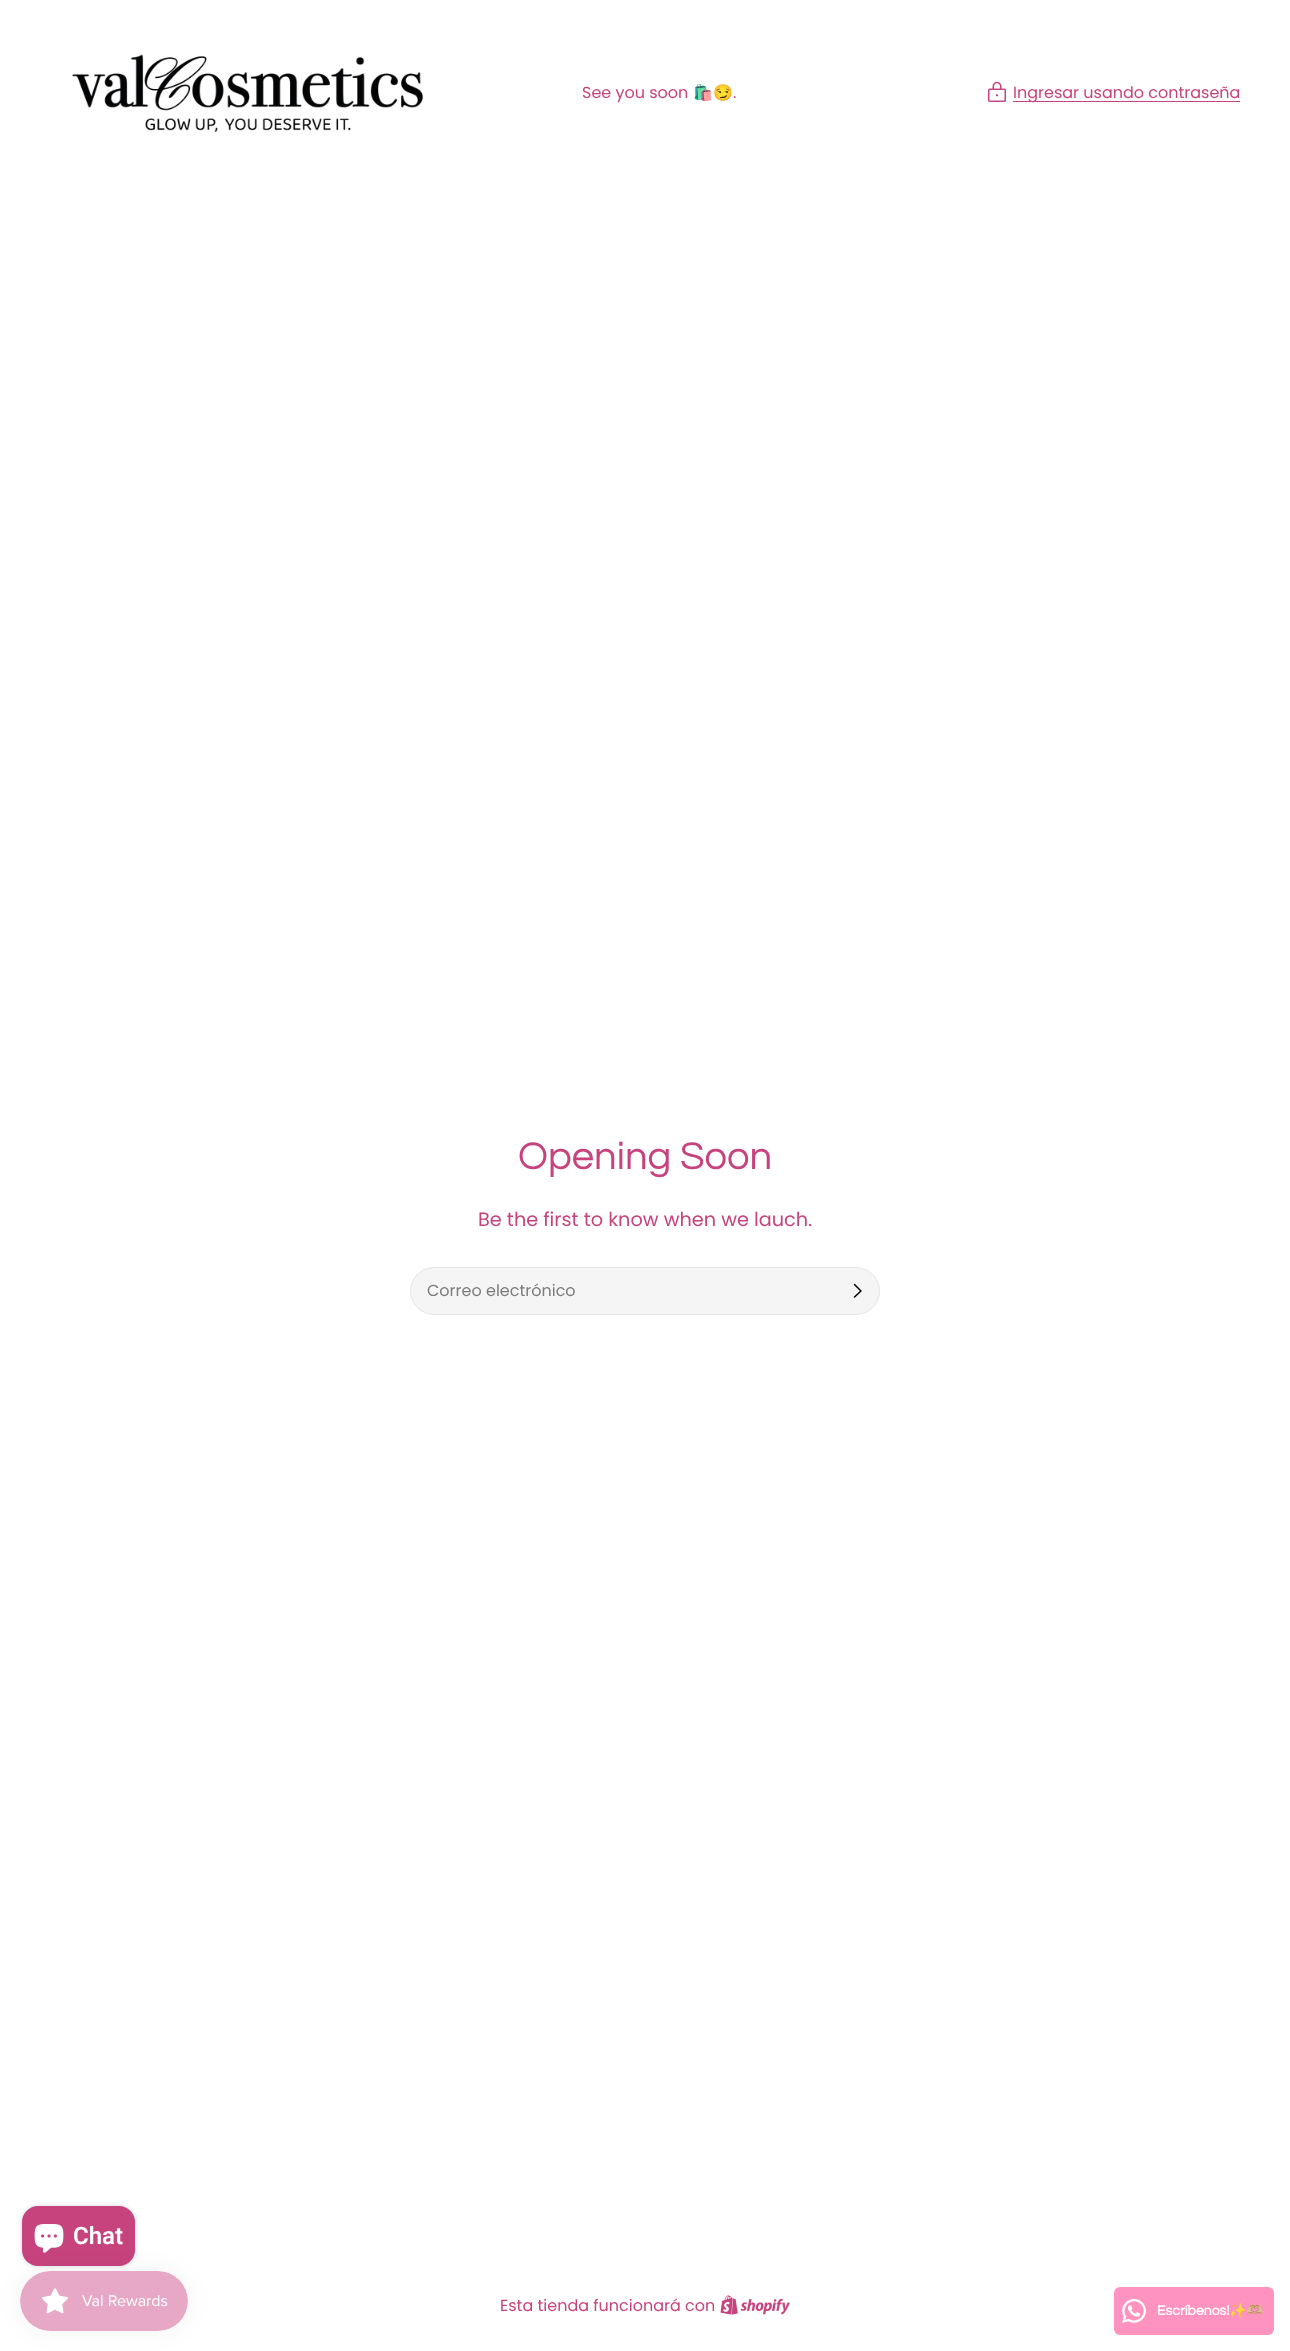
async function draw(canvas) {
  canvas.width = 1290;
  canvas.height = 2351;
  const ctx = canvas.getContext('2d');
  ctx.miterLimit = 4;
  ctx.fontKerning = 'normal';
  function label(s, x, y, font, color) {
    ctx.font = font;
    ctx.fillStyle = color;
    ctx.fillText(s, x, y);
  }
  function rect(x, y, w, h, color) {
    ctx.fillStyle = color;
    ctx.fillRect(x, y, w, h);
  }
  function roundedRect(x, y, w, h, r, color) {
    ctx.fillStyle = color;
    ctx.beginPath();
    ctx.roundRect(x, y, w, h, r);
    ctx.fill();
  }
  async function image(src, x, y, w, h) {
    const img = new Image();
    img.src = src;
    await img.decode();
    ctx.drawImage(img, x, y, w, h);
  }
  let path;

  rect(0, 0, 1290, 2351, '#fff');
  await image('assets/img1.png', 72, 54, 351, 78);
  label('See you soon', 582, 98, '16px Poppins', '#c7437e');
  label('🛍😏', 693, 98, '16px Noto Color Emoji', '#c7437e');
  label('.', 733, 98, '16px Poppins', '#c7437e');
  await image('assets/img2.png', 988, 81, 18, 21);
  rect(1013, 101, 227, 1, '#c7437e');
  label('Ingresar usando contraseña', 1013, 98, '16px Poppins', '#c7437e');
  ctx.fillStyle = '#00000026';
  ctx.filter = 'blur(2.5px)';
  ctx.beginPath();
  ctx.roundRect(22, 2206, 113, 60, 16);
  ctx.fill();
  ctx.filter = 'none';
  roundedRect(22, 2206, 113, 60, 16, '#c7437e');
  await image('assets/img3.png', 34, 2224, 30, 29);
  label('Chat', 73, 2244, '600 24px Roboto', '#fff');
  label('Opening Soon', 518, 1169, '40px Questrial', '#c7437e');
  label('Be the first to know when we lauch.', 478, 1226, '19.25px Poppins', '#c7437e');
  ctx.fillStyle = '#f5f5f5';
  ctx.beginPath();
  ctx.roundRect(410.5, 1267.5, 469, 47, 23.5);
  ctx.fill();
  ctx.strokeStyle = '#e6e6e6';
  ctx.stroke();
  label('Correo electrónico', 427, 1296, '16px Poppins', '#7b7b7b');
  path = new Path2D('M854.5 1284.5L861 1291L854.5 1297');
  ctx.strokeStyle = '#000';
  ctx.lineWidth = 1.5;
  ctx.lineCap = 'round';
  ctx.lineJoin = 'round';
  ctx.stroke(path);
  label('Esta tienda funcionará con', 500, 2311, '16px Poppins', '#c7437e');
  await image('assets/img4.png', 720, 2295, 70, 20);
  ctx.fillStyle = '#0000000d';
  ctx.filter = 'blur(12.5px)';
  ctx.beginPath();
  ctx.roundRect(20, 2271, 168, 60, 30);
  ctx.fill();
  ctx.filter = 'none';
  await image('assets/img5.png', 20, 2271, 168, 60);
  roundedRect(1114, 2287, 160, 48, 6, '#ff93c0');
  await image('assets/img6.png', 1122, 2299, 24, 24);
  label('Escríbenos!', 1157, 2315, 'bold 14px Questrial', '#fff');
  label('✨🫶🏼', 1229, 2315, 'bold 14px Noto Color Emoji', '#fff');
}

draw(document.querySelector('canvas'));
